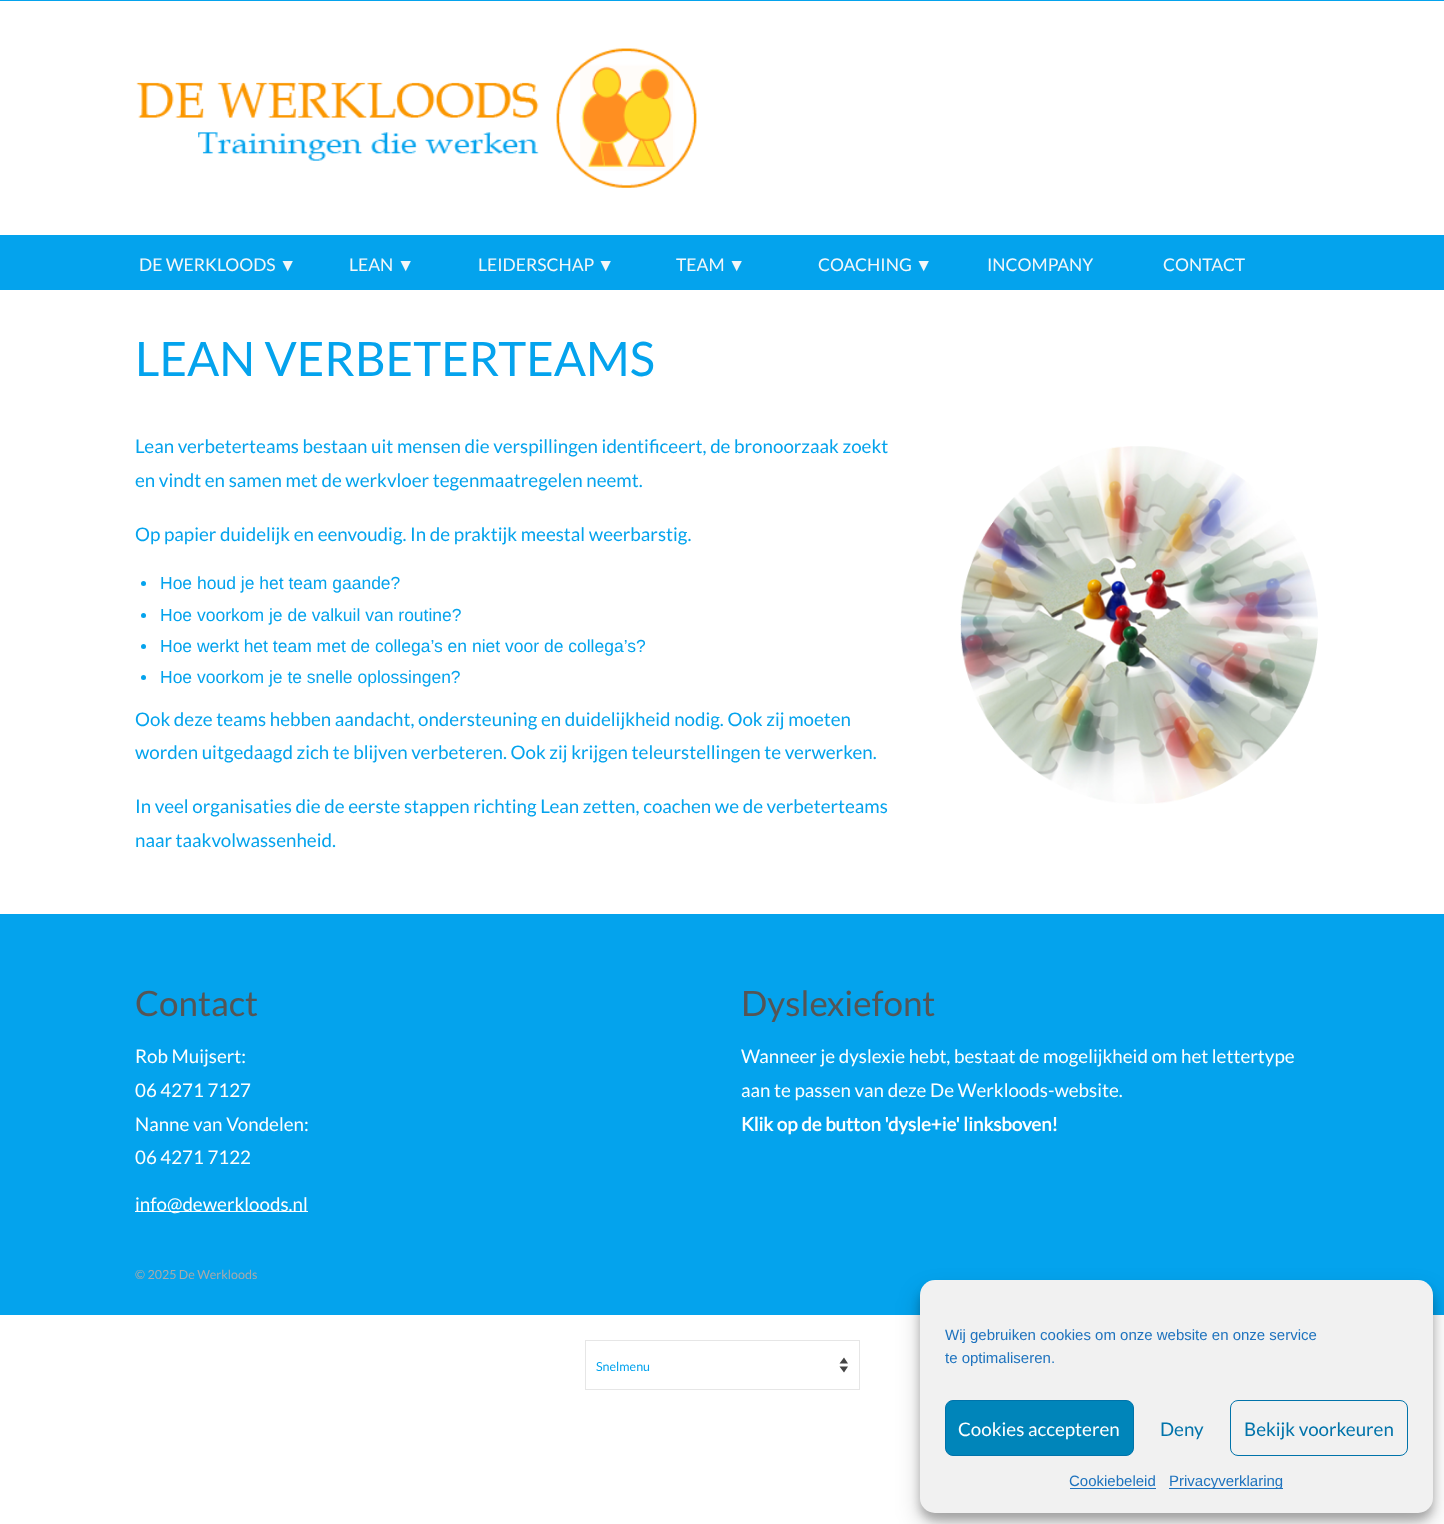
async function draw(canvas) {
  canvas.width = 1444;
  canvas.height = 1524;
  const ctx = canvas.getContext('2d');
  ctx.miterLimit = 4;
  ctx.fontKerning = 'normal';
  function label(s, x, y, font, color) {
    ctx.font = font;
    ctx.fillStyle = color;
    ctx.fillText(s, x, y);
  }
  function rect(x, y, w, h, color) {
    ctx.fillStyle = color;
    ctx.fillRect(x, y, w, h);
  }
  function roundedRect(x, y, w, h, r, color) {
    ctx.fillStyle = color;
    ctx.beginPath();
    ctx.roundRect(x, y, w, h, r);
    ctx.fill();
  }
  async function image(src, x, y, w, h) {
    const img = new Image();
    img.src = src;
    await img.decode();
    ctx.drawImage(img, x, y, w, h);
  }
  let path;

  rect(0, 0, 1444, 1524, '#fff');
  rect(0, 0, 1444, 1, '#04a3ed');
  await image('assets/img1.png', 136, 48, 561, 140);
  rect(0, 235, 1444, 55, '#04a3ed');
  label('DE WERKLOODS', 139, 271, '17.5px Lato', '#f2f7f9');
  label('▼', 279, 271, '17.5px Liberation Serif', '#f2f7f9');
  label('LEAN', 349, 271, '17.5px Lato', '#f2f7f9');
  label('▼', 397, 271, '17.5px Liberation Serif', '#f2f7f9');
  label('LEIDERSCHAP', 478, 271, '17.5px Lato', '#f2f7f9');
  label('▼', 597, 271, '17.5px Liberation Serif', '#f2f7f9');
  label('TEAM', 676, 271, '17.5px Lato', '#f2f7f9');
  label('▼', 728, 271, '17.5px Liberation Serif', '#f2f7f9');
  label('COACHING', 818, 271, '17.5px Lato', '#f2f7f9');
  label('▼', 915, 271, '17.5px Liberation Serif', '#f2f7f9');
  label('INCOMPANY', 987, 271, '17.5px Lato', '#f2f7f9');
  label('CONTACT', 1163, 271, '17.5px Lato', '#f2f7f9');
  label('LEAN VERBETERTEAMS', 135, 376, '47.5px Lato', '#04a3ed');
  label('Lean verbeterteams bestaan uit mensen die verspillingen identificeert, de bronoorzaak zoekt', 135, 453, '18.75px Lato', '#04a3ed');
  label('en vindt en samen met de werkvloer tegenmaatregelen neemt.', 135, 487, '18.75px Lato', '#04a3ed');
  label('Op papier duidelijk en eenvoudig. In de praktijk meestal weerbarstig.', 135, 541, '18.75px Lato', '#04a3ed');
  ctx.beginPath();
  ctx.arc(143.5, 583.5, 2.5, 0, 2 * Math.PI);
  ctx.fill();
  label('Hoe houd je het team gaande?', 160, 589, '17.5px Liberation Sans', '#04a3ed');
  ctx.beginPath();
  ctx.arc(143.5, 615.5, 2.5, 0, 2 * Math.PI);
  ctx.fill();
  label('Hoe voorkom je de valkuil van routine?', 160, 621, '17.5px Liberation Sans', '#04a3ed');
  ctx.beginPath();
  ctx.arc(143.5, 646.5, 2.5, 0, 2 * Math.PI);
  ctx.fill();
  label('Hoe werkt het team met de collega’s en niet voor de collega’s?', 160, 652, '17.5px Liberation Sans', '#04a3ed');
  ctx.beginPath();
  ctx.arc(143.5, 677.5, 2.5, 0, 2 * Math.PI);
  ctx.fill();
  label('Hoe voorkom je te snelle oplossingen?', 160, 683, '17.5px Liberation Sans', '#04a3ed');
  label('Ook deze teams hebben aandacht, ondersteuning en duidelijkheid nodig. Ook zij moeten', 135, 726, '18.75px Lato', '#04a3ed');
  label('worden uitgedaagd zich te blijven verbeteren. Ook zij krijgen teleurstellingen te verwerken.', 135, 759, '18.75px Lato', '#04a3ed');
  label('In veel organisaties die de eerste stappen richting Lean zetten, coachen we de verbeterteams', 135, 813, '18.75px Lato', '#04a3ed');
  label('naar taakvolwassenheid.', 135, 847, '18.75px Lato', '#04a3ed');
  await image('assets/img2.png', 960, 446, 358, 358);
  rect(0, 914, 1444, 401, '#04a3ed');
  label('Contact', 135, 1016, '35px Lato', '#555');
  label('Rob Muijsert:', 135, 1063, '18.75px Lato', '#fff');
  label('06 4271 7127', 135, 1097, '18.75px Lato', '#fff');
  label('Nanne van Vondelen:', 135, 1131, '18.75px Lato', '#fff');
  label('06 4271 7122', 135, 1164, '18.75px Lato', '#fff');
  rect(135, 1211, 173, 1, '#fff');
  label('info@dewerkloods.nl', 135, 1211, '18.75px Lato', '#fff');
  label('Dyslexiefont', 741, 1016, '35px Lato', '#555');
  label('Wanneer je dyslexie hebt, bestaat de mogelijkheid om het lettertype', 741, 1063, '18.75px Lato', '#fff');
  label('aan te passen van deze De Werkloods-website.', 741, 1097, '18.75px Lato', '#fff');
  label('Klik op de button \'dysle+ie\' linksboven!', 741, 1131, 'bold 18.75px Lato', '#fff');
  label('© 2025 De Werkloods', 135, 1279, '12.5px Lato', '#aaa');
  ctx.fillStyle = '#444';
  path = new Path2D('M839.5 1363.5L844 1357.5L848 1363.5ZM848 1366.5L844 1372.5L839.5 1366.5Z');
  ctx.fill(path);
  ctx.strokeStyle = '#e6e6e6';
  ctx.strokeRect(585.5, 1340.5, 274, 49);
  label('Snelmenu', 596, 1371, '12.5px Lato', '#04a3ed');
  ctx.fillStyle = '#0000003b';
  ctx.filter = 'blur(4px)';
  ctx.beginPath();
  ctx.roundRect(920, 1288, 513, 232, 15);
  ctx.fill();
  ctx.filter = 'none';
  ctx.fillStyle = '#00000030';
  ctx.filter = 'blur(12.5px)';
  ctx.beginPath();
  ctx.roundRect(920, 1293, 513, 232, 15);
  ctx.fill();
  ctx.filter = 'none';
  roundedRect(920, 1280, 513, 233, 15, '#f1f1f1');
  label('Wij gebruiken cookies om onze website en onze service', 945, 1340, '15px Liberation Sans', '#1e73be');
  label('te optimaliseren.', 945, 1363, '15px Liberation Sans', '#1e73be');
  ctx.fillStyle = '#0085ba';
  ctx.beginPath();
  ctx.roundRect(945.5, 1400.5, 188, 55, 7.5);
  ctx.fill();
  ctx.strokeStyle = '#0073aa';
  ctx.stroke();
  label('Cookies accepteren', 958, 1436, '18.75px Lato', '#fff');
  label('Deny', 1160, 1436, '18.75px Lato', '#0073aa');
  ctx.beginPath();
  ctx.roundRect(1230.5, 1400.5, 177, 55, 7.5);
  ctx.stroke();
  label('Bekijk voorkeuren', 1244, 1436, '18.75px Lato', '#0073aa');
  label('Cookiebeleid', 1069, 1486, '15px Liberation Sans', '#1e73be');
  rect(1070, 1488, 86, 1, '#1e73be');
  rect(1169, 1488, 114, 1, '#1e73be');
  label('Privacyverklaring', 1169, 1486, '15px Liberation Sans', '#1e73be');
}

draw(document.querySelector('canvas'));
